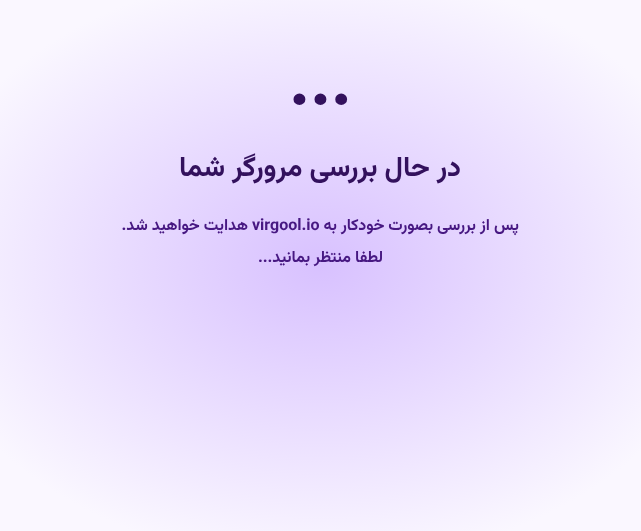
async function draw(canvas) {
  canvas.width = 641;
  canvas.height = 531;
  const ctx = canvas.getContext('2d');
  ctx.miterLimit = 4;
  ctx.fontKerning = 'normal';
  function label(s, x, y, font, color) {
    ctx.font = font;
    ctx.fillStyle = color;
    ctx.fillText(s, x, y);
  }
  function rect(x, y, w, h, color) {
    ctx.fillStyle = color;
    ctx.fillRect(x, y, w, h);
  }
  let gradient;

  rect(0, 0, 641, 531, '#fff');
  gradient = ctx.createRadialGradient(321, 365.08, 0, 321, 365.08, 409);
  gradient.addColorStop(0, '#d8c1ff');
  gradient.addColorStop(1, '#faf7ff');
  ctx.fillStyle = gradient;
  ctx.beginPath();
  ctx.rect(0, 0, 641, 531);
  ctx.save();
  ctx.clip();
  ctx.scale(1, 298 / 409);
  ctx.fillRect(0, 0, 641, 729);
  ctx.restore();
  label('...', 289, 105, 'bold 70px Vazirmatn', '#33115d');
  ctx.direction = 'rtl';
  label('در حال بررسی مرورگر شما', 461, 176, 'bold 28px Vazirmatn', '#33115d');
  label('پس از بررسی بصورت خودکار به', 519, 230, 'bold 16px Vazirmatn', '#471882');
  ctx.direction = 'ltr';
  label('virgool.io', 252, 230, 'bold 16px Vazirmatn', '#471882');
  ctx.direction = 'rtl';
  label('هدایت خواهید شد.', 248, 230, 'bold 16px Vazirmatn', '#471882');
  label('لطفا منتظر بمانید...', 383, 262, 'bold 16px Vazirmatn', '#471882');
}

draw(document.querySelector('canvas'));
